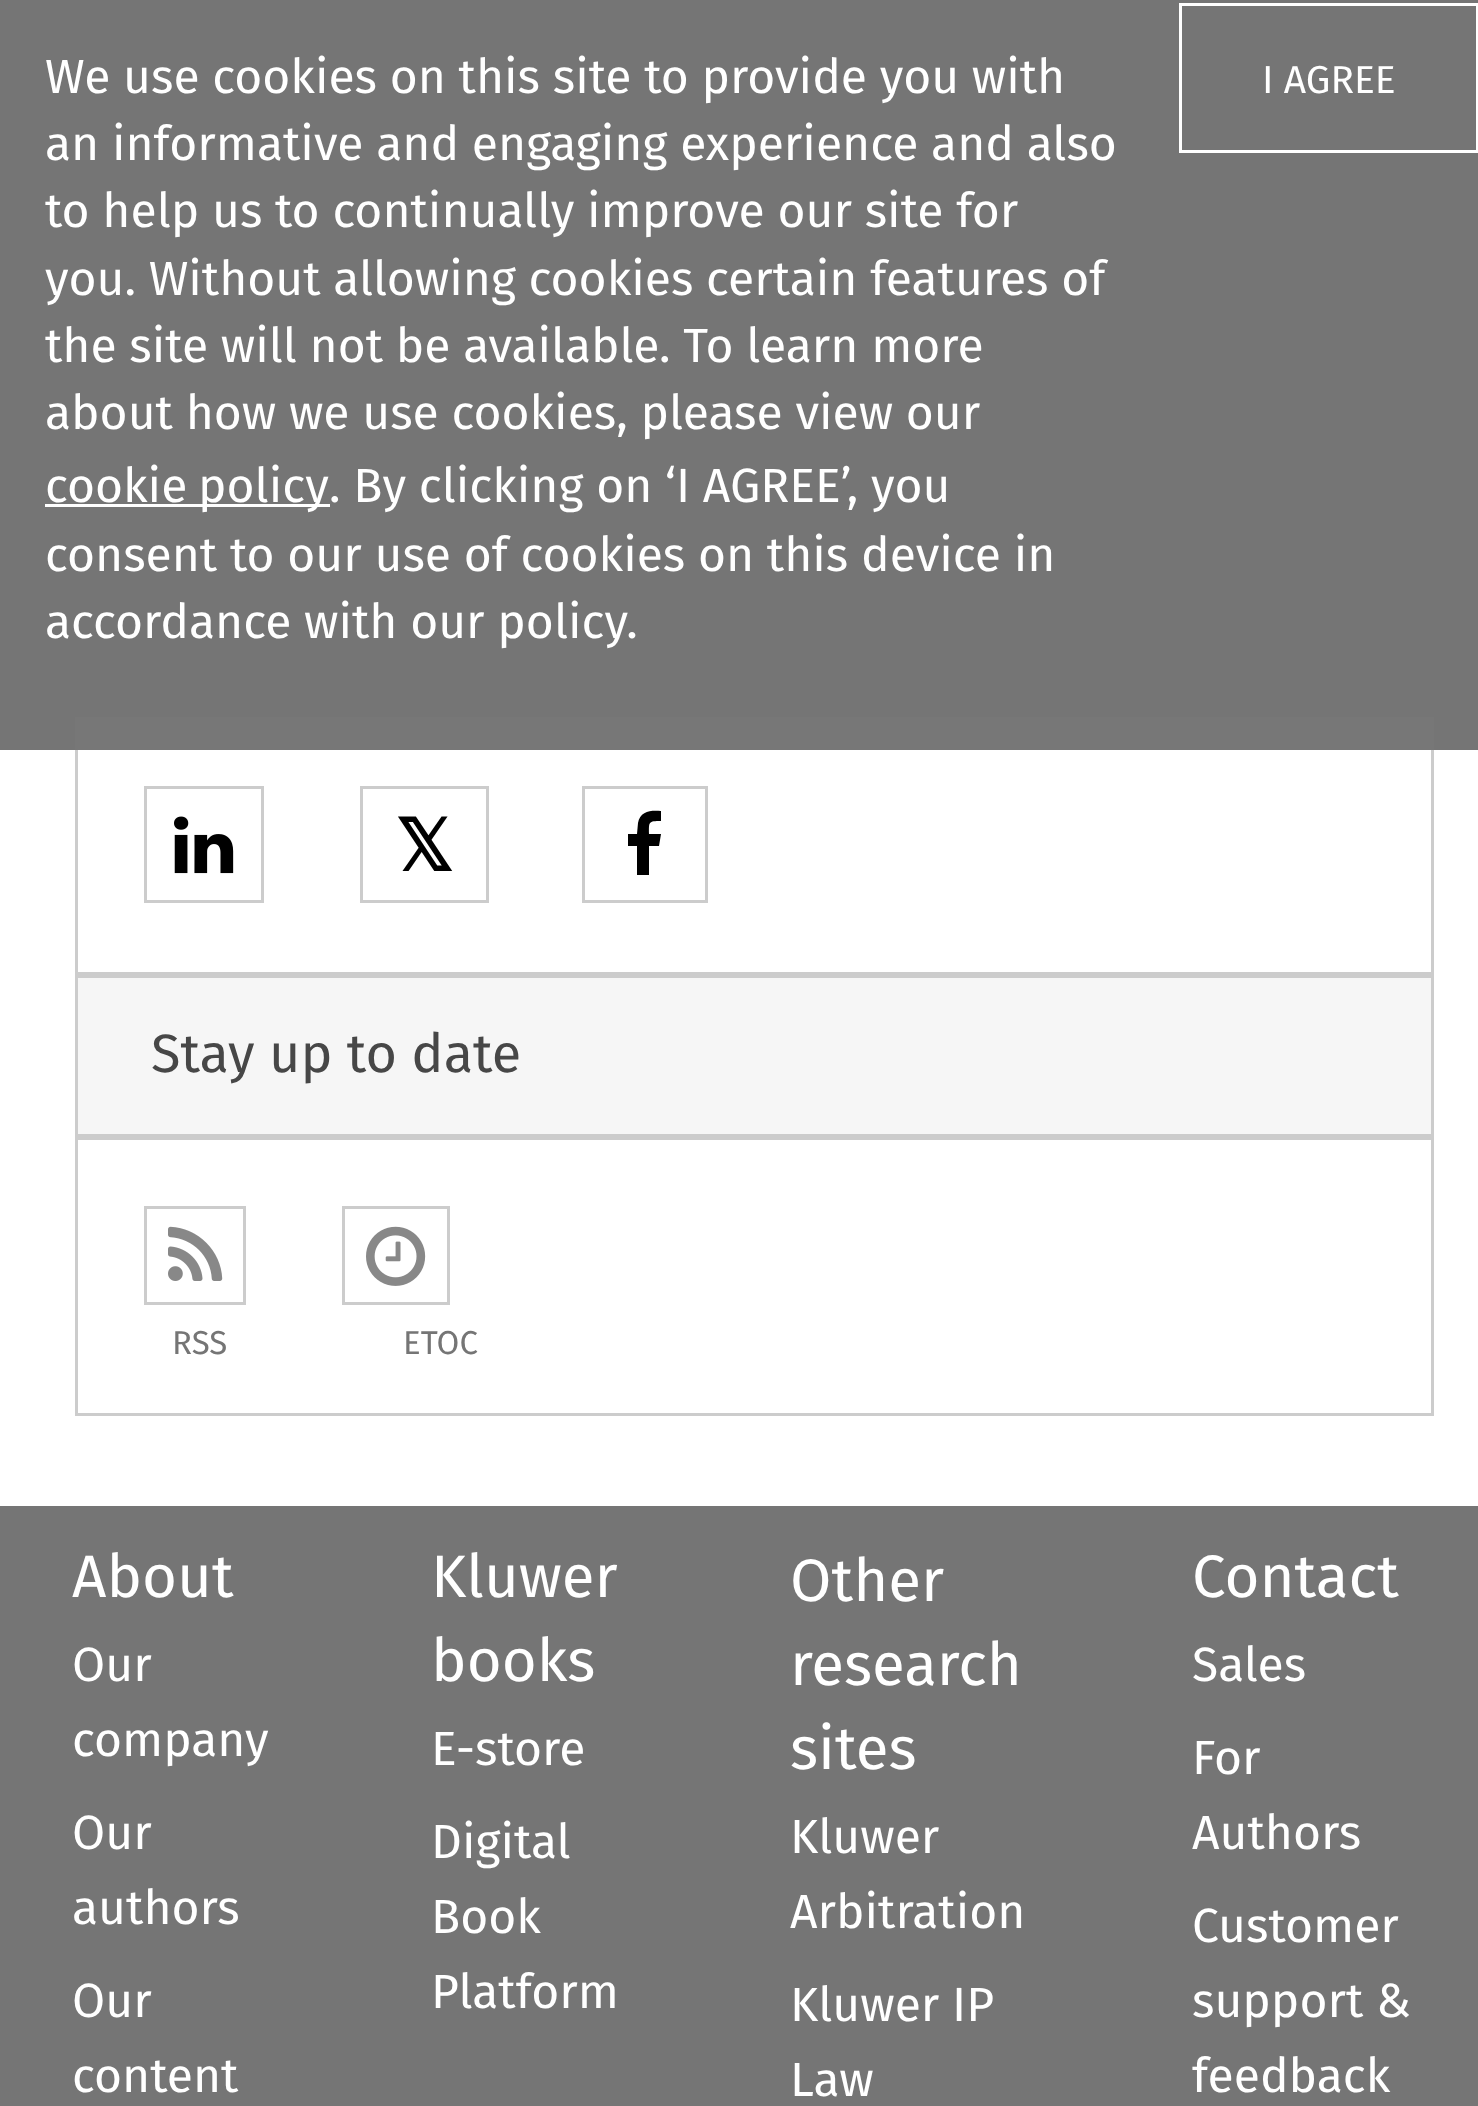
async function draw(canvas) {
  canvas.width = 1478;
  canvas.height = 2106;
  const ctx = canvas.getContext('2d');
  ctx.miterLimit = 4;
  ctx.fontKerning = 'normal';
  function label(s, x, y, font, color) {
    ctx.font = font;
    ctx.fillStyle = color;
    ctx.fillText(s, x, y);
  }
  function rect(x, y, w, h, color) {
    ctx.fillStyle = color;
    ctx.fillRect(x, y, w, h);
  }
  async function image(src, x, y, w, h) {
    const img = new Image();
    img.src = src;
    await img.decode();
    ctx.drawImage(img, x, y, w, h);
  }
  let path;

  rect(0, 0, 1478, 2106, '#757575');
  rect(0, 750, 1478, 756, '#fff');
  ctx.strokeStyle = '#ccc';
  ctx.lineWidth = 3;
  ctx.strokeRect(76.5, 718.5, 1356, 255);
  rect(75, 717, 1359, 33, '#777');
  label('We use cookies on this site to provide you with', 45, 93, '48px Fira Sans', '#fff');
  label('an informative and engaging experience and also', 45, 160, '48px Fira Sans', '#fff');
  label('to help us to continually improve our site for', 45, 227, '48px Fira Sans', '#fff');
  label('you. Without allowing cookies certain features of', 45, 295, '48px Fira Sans', '#fff');
  label('the site will not be available. To learn more', 45, 362, '48px Fira Sans', '#fff');
  label('about how we use cookies, please view our', 45, 429, '48px Fira Sans', '#fff');
  rect(45, 504, 285, 3, '#fff');
  ctx.wordSpacing = '-2px';
  label('cookie policy', 45, 502, '48px Fira Sans', '#fff');
  ctx.wordSpacing = '0px';
  label('. By clicking on ‘I AGREE’, you', 329, 502, '48px Fira Sans', '#fff');
  label('consent to our use of cookies on this device in', 45, 571, '48px Fira Sans', '#fff');
  label('accordance with our policy.', 45, 638, '48px Fira Sans', '#fff');
  ctx.strokeStyle = '#fff';
  ctx.strokeRect(1180.5, 4.5, 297, 147);
  label('I AGREE', 1262, 93, '39px Fira Sans', '#fff');
  ctx.strokeStyle = '#ccc';
  ctx.strokeRect(145.5, 787.5, 117, 114);
  await image('assets/img1.png', 174, 816, 60, 58);
  ctx.strokeRect(361.5, 787.5, 126, 114);
  label('𝕏', 395, 871, 'bold 72px DejaVu Sans', '#000');
  ctx.strokeRect(583.5, 787.5, 123, 114);
  path = new Path2D('M661 811V821C648 821 649 822 649 834H661L659 846H649V875H637V846H628V834H637L638 823C640 811 651 810 661 811Z');
  ctx.fill(path);
  ctx.fillStyle = '#f6f6f6';
  ctx.beginPath();
  ctx.rect(76.5, 976.5, 1356, 159);
  ctx.fill();
  ctx.stroke();
  label('Stay up to date', 151, 1072, '54px Fira Sans', '#474747');
  ctx.strokeRect(76.5, 1138.5, 1356, 276);
  ctx.strokeRect(145.5, 1207.5, 99, 96);
  await image('assets/img2.png', 168, 1226, 55, 55);
  ctx.strokeRect(343.5, 1207.5, 105, 96);
  await image('assets/img3.png', 366, 1226, 60, 60);
  label('RSS', 172, 1354, '33px Fira Sans', '#757575');
  label('ETOC', 403, 1354, '33px Fira Sans', '#757575');
  label('About', 72, 1597, '60px Fira Sans', '#fff');
  label('Our', 72, 1681, '48px Fira Sans', '#fff');
  label('company', 72, 1756, '48px Fira Sans', '#fff');
  label('Our', 72, 1849, '48px Fira Sans', '#fff');
  label('authors', 72, 1924, '48px Fira Sans', '#fff');
  label('Our', 72, 2017, '48px Fira Sans', '#fff');
  label('content', 72, 2092, '48px Fira Sans', '#fff');
  label('Kluwer', 431, 1597, '60px Fira Sans', '#fff');
  label('books', 431, 1681, '60px Fira Sans', '#fff');
  label('E-store', 431, 1765, '48px Fira Sans', '#fff');
  label('Digital', 431, 1858, '48px Fira Sans', '#fff');
  label('Book', 431, 1933, '48px Fira Sans', '#fff');
  label('Platform', 431, 2008, '48px Fira Sans', '#fff');
  label('Other', 790, 1601, '60px Fira Sans', '#fff');
  label('research', 790, 1685, '60px Fira Sans', '#fff');
  label('sites', 790, 1769, '60px Fira Sans', '#fff');
  label('Kluwer', 790, 1853, '48px Fira Sans', '#fff');
  label('Arbitration', 790, 1928, '48px Fira Sans', '#fff');
  label('Kluwer IP', 790, 2021, '48px Fira Sans', '#fff');
  label('Law', 790, 2096, '48px Fira Sans', '#fff');
  label('Contact', 1192, 1597, '60px Fira Sans', '#fff');
  label('Sales', 1192, 1681, '48px Fira Sans', '#fff');
  label('For', 1192, 1774, '48px Fira Sans', '#fff');
  label('Authors', 1192, 1849, '48px Fira Sans', '#fff');
  label('Customer', 1192, 1942, '48px Fira Sans', '#fff');
  label('support &', 1192, 2017, '48px Fira Sans', '#fff');
  label('feedback', 1192, 2092, '48px Fira Sans', '#fff');
}

draw(document.querySelector('canvas'));
